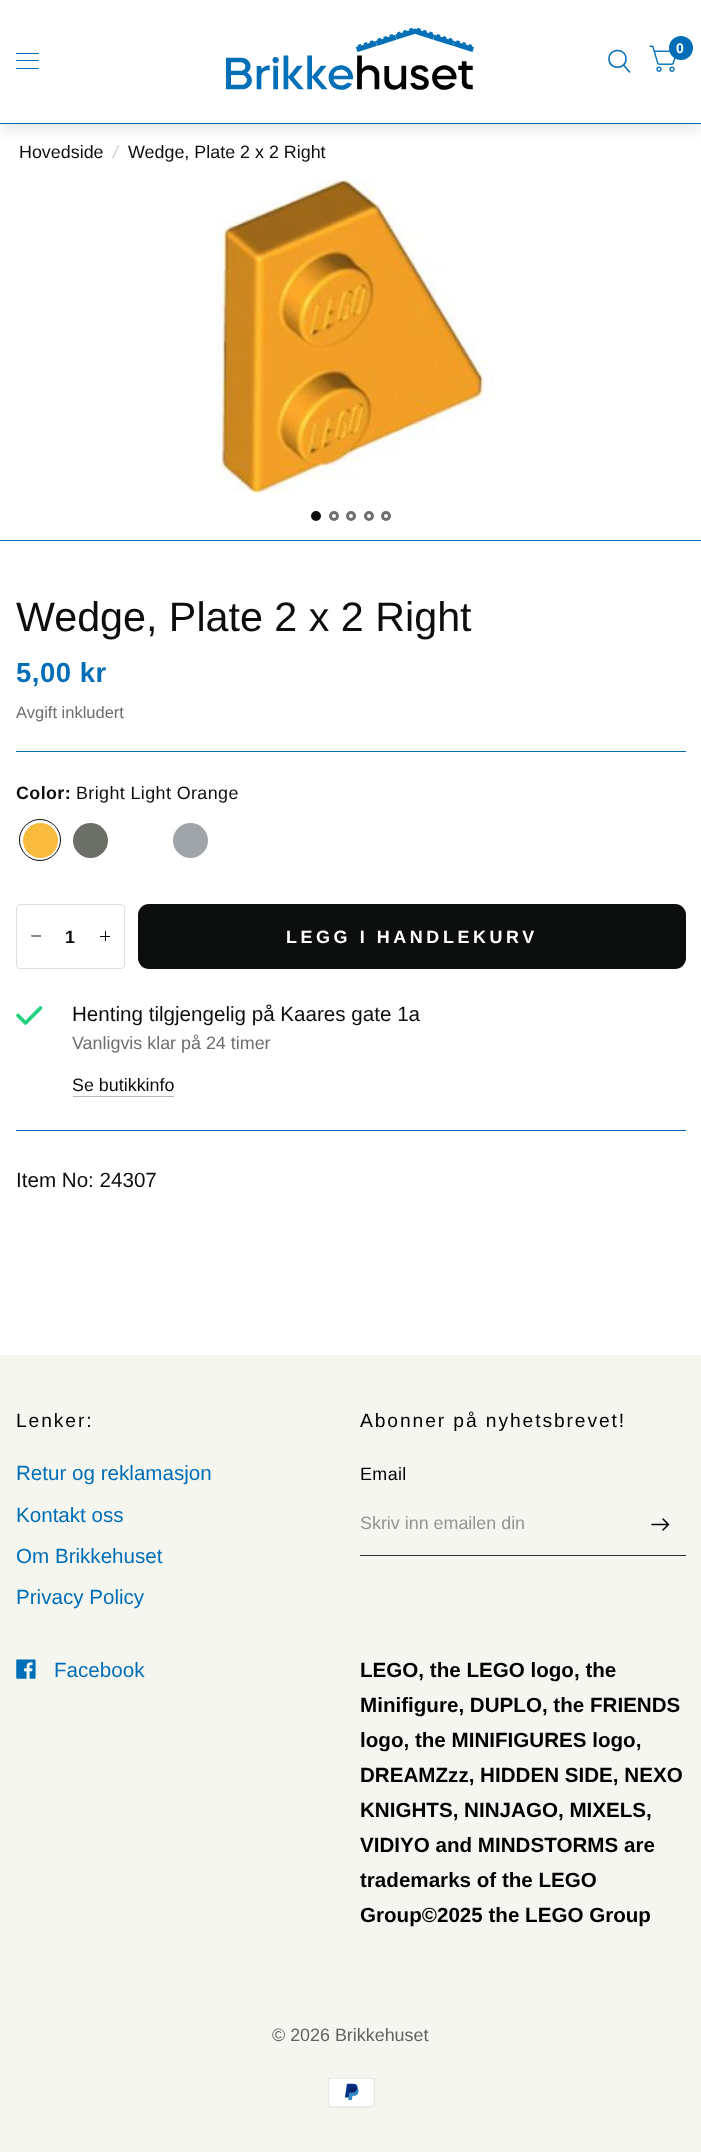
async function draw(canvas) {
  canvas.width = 701;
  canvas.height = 2152;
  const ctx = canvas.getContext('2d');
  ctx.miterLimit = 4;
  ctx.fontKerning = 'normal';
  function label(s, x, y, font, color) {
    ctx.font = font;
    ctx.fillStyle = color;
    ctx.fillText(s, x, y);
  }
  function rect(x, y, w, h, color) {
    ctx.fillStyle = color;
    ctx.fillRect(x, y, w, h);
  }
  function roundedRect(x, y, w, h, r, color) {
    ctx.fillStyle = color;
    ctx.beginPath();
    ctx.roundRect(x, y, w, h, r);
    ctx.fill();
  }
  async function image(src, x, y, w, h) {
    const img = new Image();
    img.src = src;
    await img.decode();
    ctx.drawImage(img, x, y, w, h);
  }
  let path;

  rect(0, 0, 701, 2152, '#fff');
  rect(0, 123, 701, 1, '#006eb6');
  ctx.save();
  path = new Path2D('M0 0H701V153H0ZM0 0H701V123H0Z');
  ctx.clip(path, 'evenodd');
  ctx.fillStyle = '#0000001a';
  ctx.filter = 'blur(7.5px)';
  ctx.beginPath();
  ctx.rect(0, 6, 701, 123);
  ctx.fill();
  ctx.filter = 'none';
  ctx.restore();
  await image('assets/img1.png', 225, 27, 249, 63);
  path = new Path2D('M624 65.5L629.5 72M626 59C626 70 609 70 609 59C609 47.5 626 47.5 626 59Z');
  ctx.strokeStyle = '#006eb6';
  ctx.lineWidth = 1.5;
  ctx.lineCap = 'round';
  ctx.lineJoin = 'round';
  ctx.stroke(path);
  await image('assets/img2.png', 649, 45, 27, 27);
  ctx.beginPath();
  ctx.arc(681, 48, 12, 0, 2 * Math.PI);
  ctx.fill();
  label('0', 676, 53, 'bold 14px Liberation Sans', '#fff');
  roundedRect(16, 53, 23, 1, 0.5, '#006eb6');
  roundedRect(16, 60, 23, 1, 0.5, '#006eb6');
  roundedRect(16, 68, 23, 1, 0.5, '#006eb6');
  label('Hovedside', 19, 158, '17.9px Liberation Sans', '#0c0d0d');
  label('/', 113, 158, 'italic 17.9px Liberation Sans', '#cecfcf');
  label('Wedge, Plate 2 x 2 Right', 128, 158, '17.9px Liberation Sans', '#0c0d0d');
  await image('assets/img3.png', 215, 180, 279, 313);
  rect(0, 540, 701, 1, '#006eb6');
  ctx.fillStyle = '#0c0d0d';
  ctx.beginPath();
  ctx.arc(316, 516, 3.5, 0, 2 * Math.PI);
  ctx.fill();
  ctx.strokeStyle = '#0c0d0d';
  ctx.lineWidth = 3;
  ctx.stroke();
  ctx.beginPath();
  ctx.arc(334, 516, 3.5, 0, 2 * Math.PI);
  ctx.strokeStyle = '#6d6e6e';
  ctx.stroke();
  ctx.beginPath();
  ctx.arc(351, 516, 3.5, 0, 2 * Math.PI);
  ctx.stroke();
  ctx.beginPath();
  ctx.arc(369, 516, 3.5, 0, 2 * Math.PI);
  ctx.stroke();
  ctx.beginPath();
  ctx.arc(386, 516, 3.5, 0, 2 * Math.PI);
  ctx.stroke();
  rect(16, 751, 670, 1, '#006eb6');
  label('Wedge, Plate 2 x 2 Right', 16, 631, '41.25px Liberation Sans', '#0c0d0d');
  ctx.letterSpacing = '0.5px';
  label('5,00 kr', 16, 682, 'bold 27.5px Liberation Sans', '#006eb6');
  ctx.letterSpacing = '0px';
  label('Avgift inkludert', 16, 718, '16.5px Liberation Sans', '#6d6e6e');
  ctx.letterSpacing = '0.4px';
  label('Color:', 16, 799, 'bold 17.9px Liberation Sans', '#0c0d0d');
  label('Bright Light Orange', 76, 799, '17.9px Liberation Sans', '#0c0d0d');
  ctx.beginPath();
  ctx.arc(40, 840, 20.5, 0, 2 * Math.PI);
  ctx.strokeStyle = '#0c0d0d';
  ctx.lineWidth = 1;
  ctx.stroke();
  ctx.fillStyle = '#f8bb3d';
  ctx.beginPath();
  ctx.arc(40.5, 840.5, 17.5, 0, 2 * Math.PI);
  ctx.fill();
  ctx.fillStyle = '#6c6e68';
  ctx.beginPath();
  ctx.arc(90.5, 840.5, 17.5, 0, 2 * Math.PI);
  ctx.fill();
  ctx.fillStyle = '#a0a5a9';
  ctx.beginPath();
  ctx.arc(190.5, 840.5, 17.5, 0, 2 * Math.PI);
  ctx.fill();
  ctx.beginPath();
  ctx.roundRect(16.5, 904.5, 108, 64, 3.5);
  ctx.strokeStyle = '#dedede';
  ctx.lineJoin = 'miter';
  ctx.stroke();
  ctx.fillStyle = '#0c0d0d';
  path = new Path2D('M31.5 936.5L31 935.5H41V936.5Z');
  ctx.fill(path);
  ctx.letterSpacing = '0px';
  label('1', 65, 943, 'bold 17.9px Liberation Sans', '#0c0d0d');
  rect(105, 931, 1, 10, '#0c0d0d');
  rect(100, 936, 10, 1, '#0c0d0d');
  roundedRect(138, 904, 548, 65, 11, '#0c0d0d');
  ctx.letterSpacing = '3.6px';
  label('LEGG I HANDLEKURV', 286, 943, 'bold 17.9px Liberation Sans', '#fff');
  rect(16, 1130, 670, 1, '#006eb6');
  path = new Path2D('M40.5 1008L25.5 1023L18 1015.5');
  ctx.strokeStyle = '#21d17d';
  ctx.lineWidth = 3.8;
  ctx.lineJoin = 'round';
  ctx.stroke(path);
  ctx.letterSpacing = '0px';
  label('Henting tilgjengelig på Kaares gate 1a', 72, 1021, '20.6px Liberation Sans', '#0c0d0d');
  label('Vanligvis klar på 24 timer', 72, 1049, '17.9px Liberation Sans', '#6d6e6e');
  label('Se butikkinfo', 72, 1091, '17.9px Liberation Sans', '#0c0d0d');
  rect(73, 1096, 101, 1, '#b6b6b6');
  label('Item No: 24307', 16, 1187, '20.6px Liberation Sans', '#0c0d0d');
  rect(0, 1355, 701, 797, '#f6f6f0');
  ctx.letterSpacing = '1.9px';
  label('Lenker:', 16, 1427, '19.25px Liberation Sans', '#000');
  ctx.letterSpacing = '0px';
  label('Retur og reklamasjon', 16, 1480, '20.6px Liberation Sans', '#006eb6');
  label('Kontakt oss', 16, 1522, '20.6px Liberation Sans', '#006eb6');
  label('Om Brikkehuset', 16, 1563, '20.6px Liberation Sans', '#006eb6');
  label('Privacy Policy', 16, 1604, '20.6px Liberation Sans', '#006eb6');
  ctx.letterSpacing = '1.9px';
  label('Abonner på nyhetsbrevet!', 360, 1427, '19.25px Liberation Sans', '#000');
  ctx.letterSpacing = '0.4px';
  label('Email', 360, 1480, '17.9px Liberation Sans', '#000');
  rect(360, 1555, 326, 1, '#2b2b2b');
  ctx.letterSpacing = '0px';
  label('Skriv inn emailen din', 360, 1529, '17.9px Liberation Sans', '#949490');
  path = new Path2D('M652 1524.5H667M663 1519L668.5 1524.5L663 1530');
  ctx.strokeStyle = '#000';
  ctx.lineWidth = 1.5;
  ctx.stroke(path);
  await image('assets/img4.png', 16, 1659, 20, 20);
  label('Facebook', 54, 1677, '20.6px Liberation Sans', '#006eb6');
  label('LEGO, the LEGO logo, the', 360, 1677, 'bold 20.6px Liberation Sans', '#000');
  label('Minifigure, DUPLO, the FRIENDS', 360, 1712, 'bold 20.6px Liberation Sans', '#000');
  label('logo, the MINIFIGURES logo,', 360, 1747, 'bold 20.6px Liberation Sans', '#000');
  label('DREAMZzz, HIDDEN SIDE, NEXO', 360, 1782, 'bold 20.6px Liberation Sans', '#000');
  label('KNIGHTS, NINJAGO, MIXELS,', 360, 1817, 'bold 20.6px Liberation Sans', '#000');
  label('VIDIYO and MINDSTORMS are', 360, 1852, 'bold 20.6px Liberation Sans', '#000');
  label('trademarks of the LEGO', 360, 1887, 'bold 20.6px Liberation Sans', '#000');
  label('Group©2025 the LEGO Group', 360, 1922, 'bold 20.6px Liberation Sans', '#000');
  label('© 2026 Brikkehuset', 272, 2041, '17.9px Liberation Sans', '#626260');
  await image('assets/img5.png', 328, 2078, 47, 30);
}

draw(document.querySelector('canvas'));
